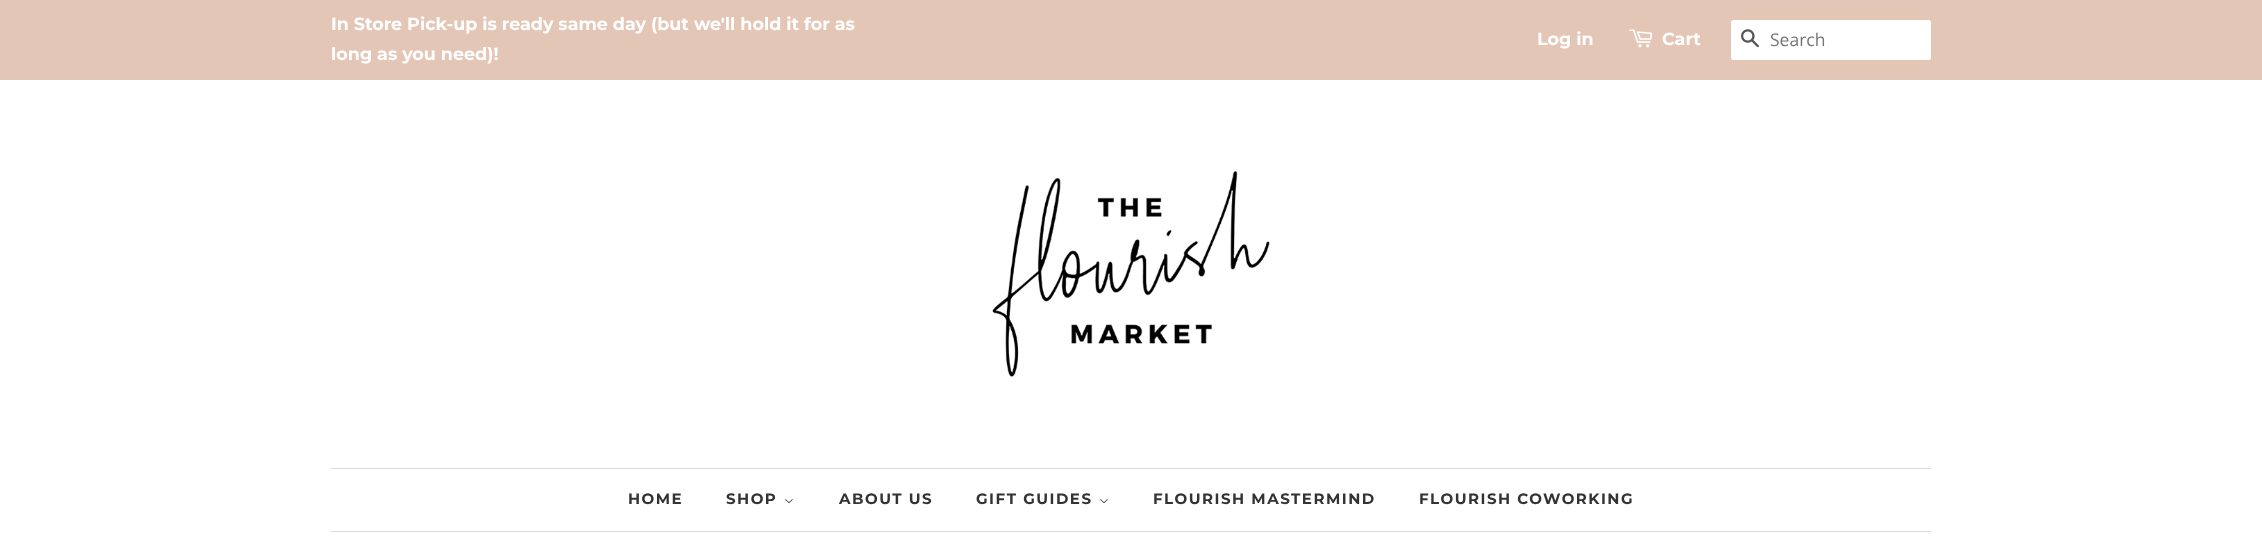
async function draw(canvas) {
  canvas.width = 2262;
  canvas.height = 558;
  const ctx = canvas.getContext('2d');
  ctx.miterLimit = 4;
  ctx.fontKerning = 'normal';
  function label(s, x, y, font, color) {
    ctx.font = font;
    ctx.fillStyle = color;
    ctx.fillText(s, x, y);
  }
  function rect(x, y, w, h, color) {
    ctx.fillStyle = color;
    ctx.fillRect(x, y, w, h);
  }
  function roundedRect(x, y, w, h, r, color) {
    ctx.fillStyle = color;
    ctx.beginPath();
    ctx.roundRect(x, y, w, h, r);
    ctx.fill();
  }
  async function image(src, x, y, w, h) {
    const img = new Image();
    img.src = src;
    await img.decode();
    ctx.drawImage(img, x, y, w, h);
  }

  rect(0, 0, 2262, 558, '#fff');
  rect(0, 0, 2262, 80, '#e4c6b6');
  label('In Store Pick-up is ready same day (but we\'ll hold it for as', 331, 30, '100 17.5px Montserrat', '#fff');
  label('long as you need)!', 331, 60, '100 17.5px Montserrat', '#fff');
  label('Log in', 1537, 45, '100 17.5px Montserrat', '#fff');
  await image('assets/img1.png', 1629, 29, 24, 19);
  label('Cart', 1662, 45, '100 17.5px Montserrat', '#fff');
  roundedRect(1731, 20, 200, 40, 2.5, '#fff');
  await image('assets/img2.png', 1741, 29, 18, 19);
  label('Search', 1770, 46, '17.5px Open Sans', '#757575');
  await image('assets/img3.png', 992, 171, 278, 206);
  rect(331, 468, 1600, 1, '#ded9d7');
  rect(331, 531, 1600, 1, '#ded9d7');
  ctx.letterSpacing = '1.5px';
  label('HOME', 628, 504, '100 15px Montserrat', '#333');
  label('SHOP', 726, 504, '100 15px Montserrat', '#333');
  await image('assets/img4.png', 785, 499, 8, 5);
  label('ABOUT US', 839, 504, '100 15px Montserrat', '#333');
  label('GIFT GUIDES', 976, 504, '100 15px Montserrat', '#333');
  await image('assets/img4.png', 1100, 499, 8, 5);
  label('FLOURISH MASTERMIND', 1153, 504, '100 15px Montserrat', '#333');
  label('FLOURISH COWORKING', 1419, 504, '100 15px Montserrat', '#333');
}

draw(document.querySelector('canvas'));
